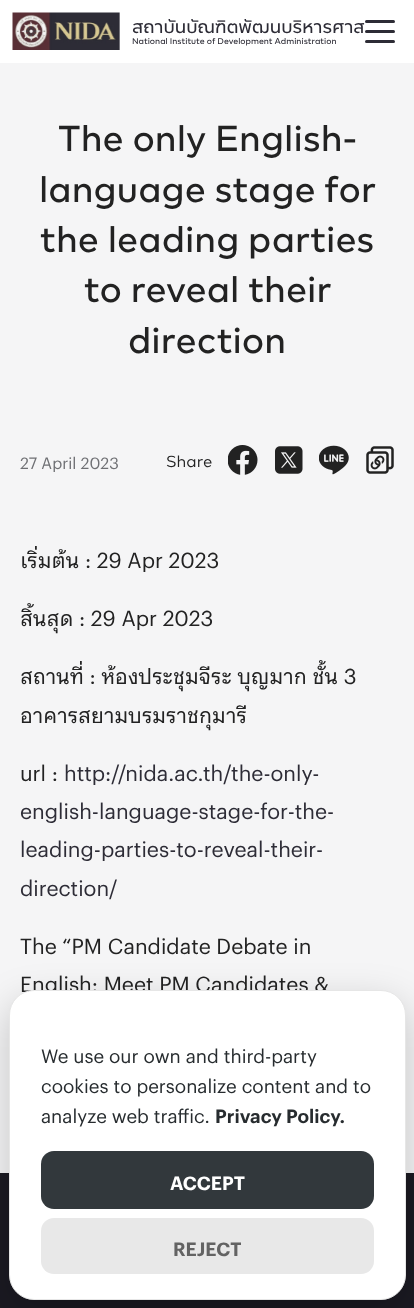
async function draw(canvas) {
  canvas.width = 414;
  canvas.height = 1308;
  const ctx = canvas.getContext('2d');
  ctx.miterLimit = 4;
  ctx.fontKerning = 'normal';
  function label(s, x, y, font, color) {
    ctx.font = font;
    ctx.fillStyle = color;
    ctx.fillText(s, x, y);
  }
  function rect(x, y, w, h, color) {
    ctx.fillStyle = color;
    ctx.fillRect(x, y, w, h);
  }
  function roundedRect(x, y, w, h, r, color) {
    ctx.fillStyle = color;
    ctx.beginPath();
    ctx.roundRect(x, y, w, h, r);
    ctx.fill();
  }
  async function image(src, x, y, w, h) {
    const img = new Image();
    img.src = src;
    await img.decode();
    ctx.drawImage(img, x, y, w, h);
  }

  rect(0, 0, 414, 1308, '#f5f5f6');
  rect(0, 0, 414, 63, '#fff');
  await image('assets/img1.png', 12, 12, 108, 38);
  label('สถาบันบัณฑิตพัฒนบริหารศาส', 132, 33, '500 17.5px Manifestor', '#2d2c36');
  label('National Institute of Development Administration', 132, 44, '500 8.4px Manifestor', '#2d2c36');
  roundedRect(365, 30, 30, 3, 1.5, '#2d2c36');
  roundedRect(365, 20, 30, 3, 1.5, '#2d2c36');
  roundedRect(365, 40, 30, 3, 1.5, '#2d2c36');
  label('The only English-', 58, 151, '500 36px Manifestor', '#222');
  label('language stage for', 39, 202, '500 36px Manifestor', '#222');
  label('the leading parties', 40, 252, '500 36px Manifestor', '#222');
  label('to reveal their', 84, 302, '500 36px Manifestor', '#222');
  label('direction', 128, 353, '500 36px Manifestor', '#222');
  label('27 April 2023', 20, 469, '16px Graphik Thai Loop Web', '#6f7074');
  label('Share', 166, 467, '16px Manifestor', '#222');
  await image('assets/img2.png', 228, 445, 30, 30);
  await image('assets/img3.png', 275, 446, 28, 28);
  await image('assets/img4.png', 319, 445, 30, 30);
  await image('assets/img5.png', 366, 446, 28, 28);
  label('เริ่มต้น : 29 Apr 2023', 20, 568, '21.25px Graphik Thai Loop Web', '#222');
  label('สิ้นสุด : 29 Apr 2023', 20, 626, '21.25px Graphik Thai Loop Web', '#222');
  label('สถานที่ : ห้องประชุมจีระ บุญมาก ชั้น 3', 20, 684, '21.25px Graphik Thai Loop Web', '#222');
  label('อาคารสยามบรมราชกุมารี', 20, 723, '21.25px Graphik Thai Loop Web', '#222');
  label('url :', 20, 781, '21.25px Graphik Thai Loop Web', '#222');
  label('http://nida.ac.th/the-only-', 64, 781, '21.25px Graphik Thai Loop Web', '#2d2c36');
  label('english-language-stage-for-the-', 20, 819, '21.25px Graphik Thai Loop Web', '#2d2c36');
  label('leading-parties-to-reveal-their-', 20, 857, '21.25px Graphik Thai Loop Web', '#2d2c36');
  label('direction/', 20, 896, '21.25px Graphik Thai Loop Web', '#2d2c36');
  label('The “PM Candidate Debate in', 20, 954, '21.25px Graphik Thai Loop Web', '#222');
  label('English: Meet PM Candidates &', 20, 992, '21.25px Graphik Thai Loop Web', '#222');
  rect(0, 1173, 414, 135, '#1b1a22');
  ctx.fillStyle = '#02020233';
  ctx.filter = 'blur(19px)';
  ctx.beginPath();
  ctx.roundRect(9, 1003, 397, 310, 25);
  ctx.fill();
  ctx.filter = 'none';
  ctx.fillStyle = '#fff';
  ctx.beginPath();
  ctx.roundRect(9.5, 990.5, 396, 309, 24.5);
  ctx.fill();
  ctx.strokeStyle = '#e6e6e6';
  ctx.stroke();
  label('We use our own and third-party', 41, 1063, '18.75px Graphik Thai Loop Web', '#272c2f');
  label('cookies to personalize content and to', 41, 1093, '18.75px Graphik Thai Loop Web', '#272c2f');
  label('analyze web traffic.', 41, 1123, '18.75px Graphik Thai Loop Web', '#272c2f');
  label('Privacy Policy.', 215, 1123, '600 18.75px Graphik Thai Loop Web', '#272c2f');
  roundedRect(41, 1151, 333, 58, 13, '#32383c');
  label('ACCEPT', 170, 1190, '600 18.75px Graphik Thai Loop Web', '#fff');
  roundedRect(41, 1218, 333, 56, 13, '#e8e8e8');
  label('REJECT', 173, 1256, '600 18.75px Graphik Thai Loop Web', '#636363');
}

draw(document.querySelector('canvas'));
